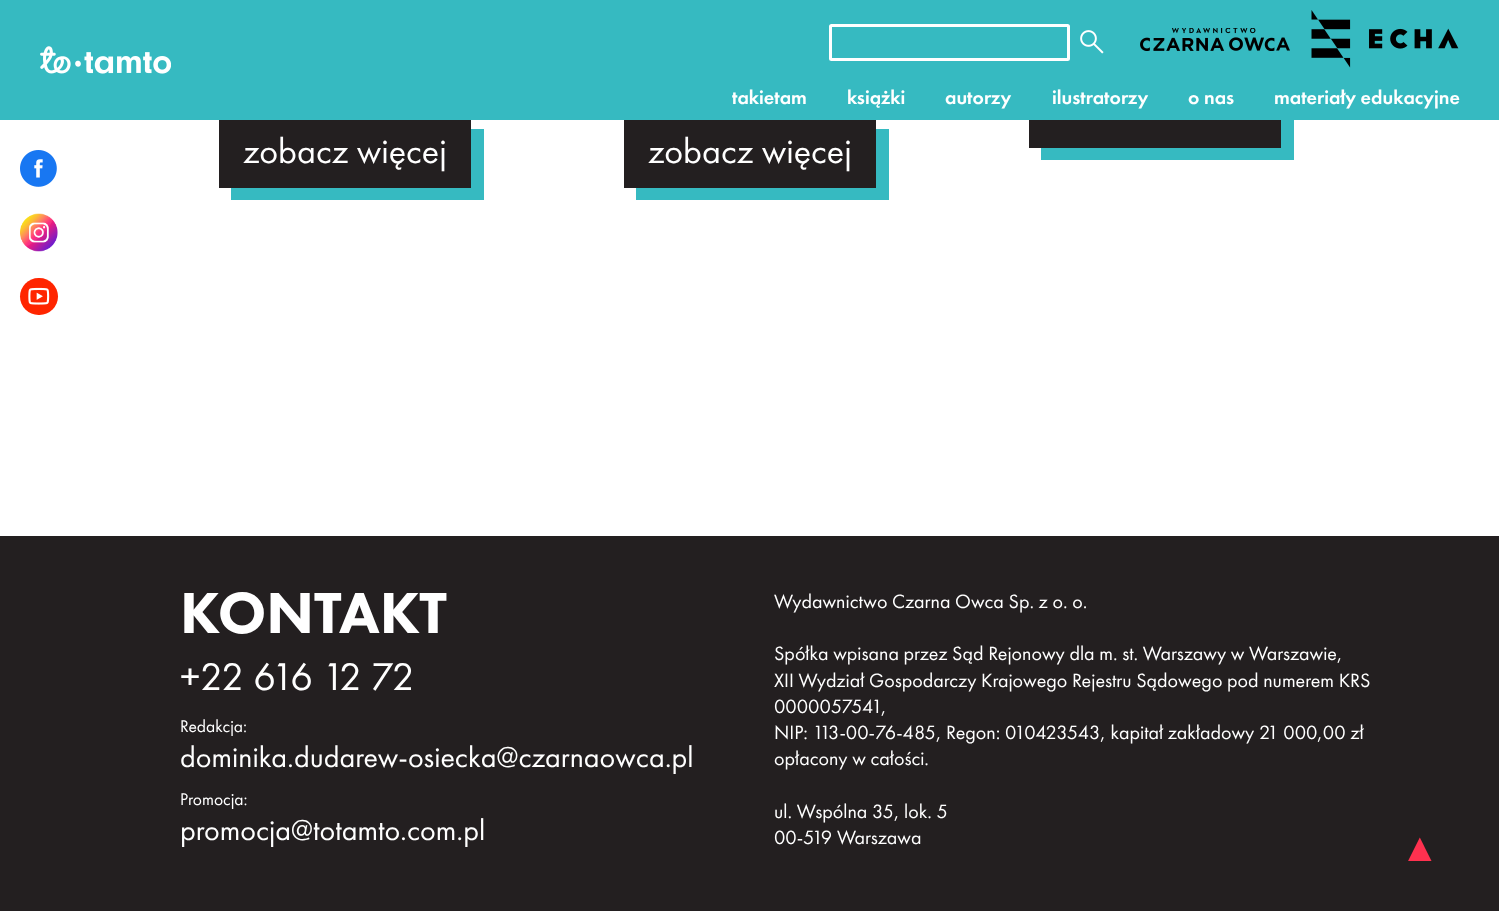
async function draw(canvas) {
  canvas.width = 1499;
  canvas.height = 911;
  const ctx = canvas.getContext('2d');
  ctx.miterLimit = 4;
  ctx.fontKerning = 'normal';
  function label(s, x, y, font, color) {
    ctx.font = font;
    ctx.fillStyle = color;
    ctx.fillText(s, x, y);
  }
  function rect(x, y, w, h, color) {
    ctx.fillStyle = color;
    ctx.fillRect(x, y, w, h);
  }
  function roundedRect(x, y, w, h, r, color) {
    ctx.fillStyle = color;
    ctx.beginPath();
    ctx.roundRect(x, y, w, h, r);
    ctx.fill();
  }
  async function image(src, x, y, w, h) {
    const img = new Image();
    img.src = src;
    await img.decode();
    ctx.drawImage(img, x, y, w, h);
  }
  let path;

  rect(0, 0, 1499, 911, '#fff');
  ctx.fillStyle = '#36bac1';
  path = new Path2D('M1041 148V160H1294V89H1281V148Z');
  ctx.fill(path);
  rect(0, 0, 1499, 120, '#36bac1');
  await image('assets/img1.png', 40, 46, 131, 28);
  ctx.beginPath();
  ctx.roundRect(830.5, 25.5, 238, 34, 1);
  ctx.strokeStyle = '#fff';
  ctx.lineWidth = 3;
  ctx.stroke();
  await image('assets/img2.png', 1080, 30, 24, 24);
  await image('assets/img3.png', 1140, 28, 150, 23);
  await image('assets/img4.png', 1311, 10, 148, 58);
  label('takietam', 732, 104, '500 20px Futura PT', '#fff');
  label('książki', 847, 104, '500 20px Futura PT', '#fff');
  label('autorzy', 945, 104, '500 20px Futura PT', '#fff');
  label('ilustratorzy', 1052, 104, '500 20px Futura PT', '#fff');
  label('o nas', 1188, 104, '500 20px Futura PT', '#fff');
  label('materiały edukacyjne', 1274, 104, '500 20px Futura PT', '#fff');
  await image('assets/img5.png', 20, 150, 37, 37);
  await image('assets/img6.png', 20, 213, 38, 39);
  roundedRect(20, 278, 38, 37, 18.5, '#ff2500');
  await image('assets/img7.png', 28, 287, 22, 18);
  ctx.fillStyle = '#36bac1';
  path = new Path2D('M231 188V200H484V129H471V188Z');
  ctx.fill(path);
  rect(219, 120, 252, 68, '#231f20');
  label('zobacz więcej', 243, 163, '36px Futura PT', '#fff');
  ctx.fillStyle = '#36bac1';
  path = new Path2D('M636 188V200H889V129H876V188Z');
  ctx.fill(path);
  rect(624, 120, 252, 68, '#231f20');
  label('zobacz więcej', 648, 163, '36px Futura PT', '#fff');
  rect(1029, 120, 252, 28, '#231f20');
  rect(0, 536, 1499, 375, '#231f20');
  label('KONTAKT', 180, 633, '900 60px Futura PT', '#fff');
  label('+22 616 12 72', 180, 690, '40px Futura PT', '#fff');
  label('Redakcja:', 180, 732, '17.5px Futura PT', '#fff');
  label('dominika.dudarew-osiecka@czarnaowca.pl', 180, 767, '30px Futura PT', '#fff');
  label('Promocja:', 180, 805, '17.5px Futura PT', '#fff');
  label('promocja@totamto.com.pl', 180, 840, '30px Futura PT', '#fff');
  label('Wydawnictwo Czarna Owca Sp. z o. o.', 774, 608, '20px Futura PT', '#fff');
  label('Spółka wpisana przez Sąd Rejonowy dla m. st. Warszawy w Warszawie,', 774, 660, '20px Futura PT', '#fff');
  label('XII Wydział Gospodarczy Krajowego Rejestru Sądowego pod numerem KRS', 774, 687, '20px Futura PT', '#fff');
  label('0000057541,', 774, 713, '20px Futura PT', '#fff');
  label('NIP: 113-00-76-485, Regon: 010423543, kapitał zakładowy 21 000,00 zł', 774, 739, '20px Futura PT', '#fff');
  label('opłacony w całości.', 774, 765, '20px Futura PT', '#fff');
  label('ul. Wspólna 35, lok. 5', 774, 818, '20px Futura PT', '#fff');
  label('00-519 Warszawa', 774, 844, '20px Futura PT', '#fff');
  label('▲', 1400, 861, '40px Liberation Sans', '#ff314f');
}

draw(document.querySelector('canvas'));
